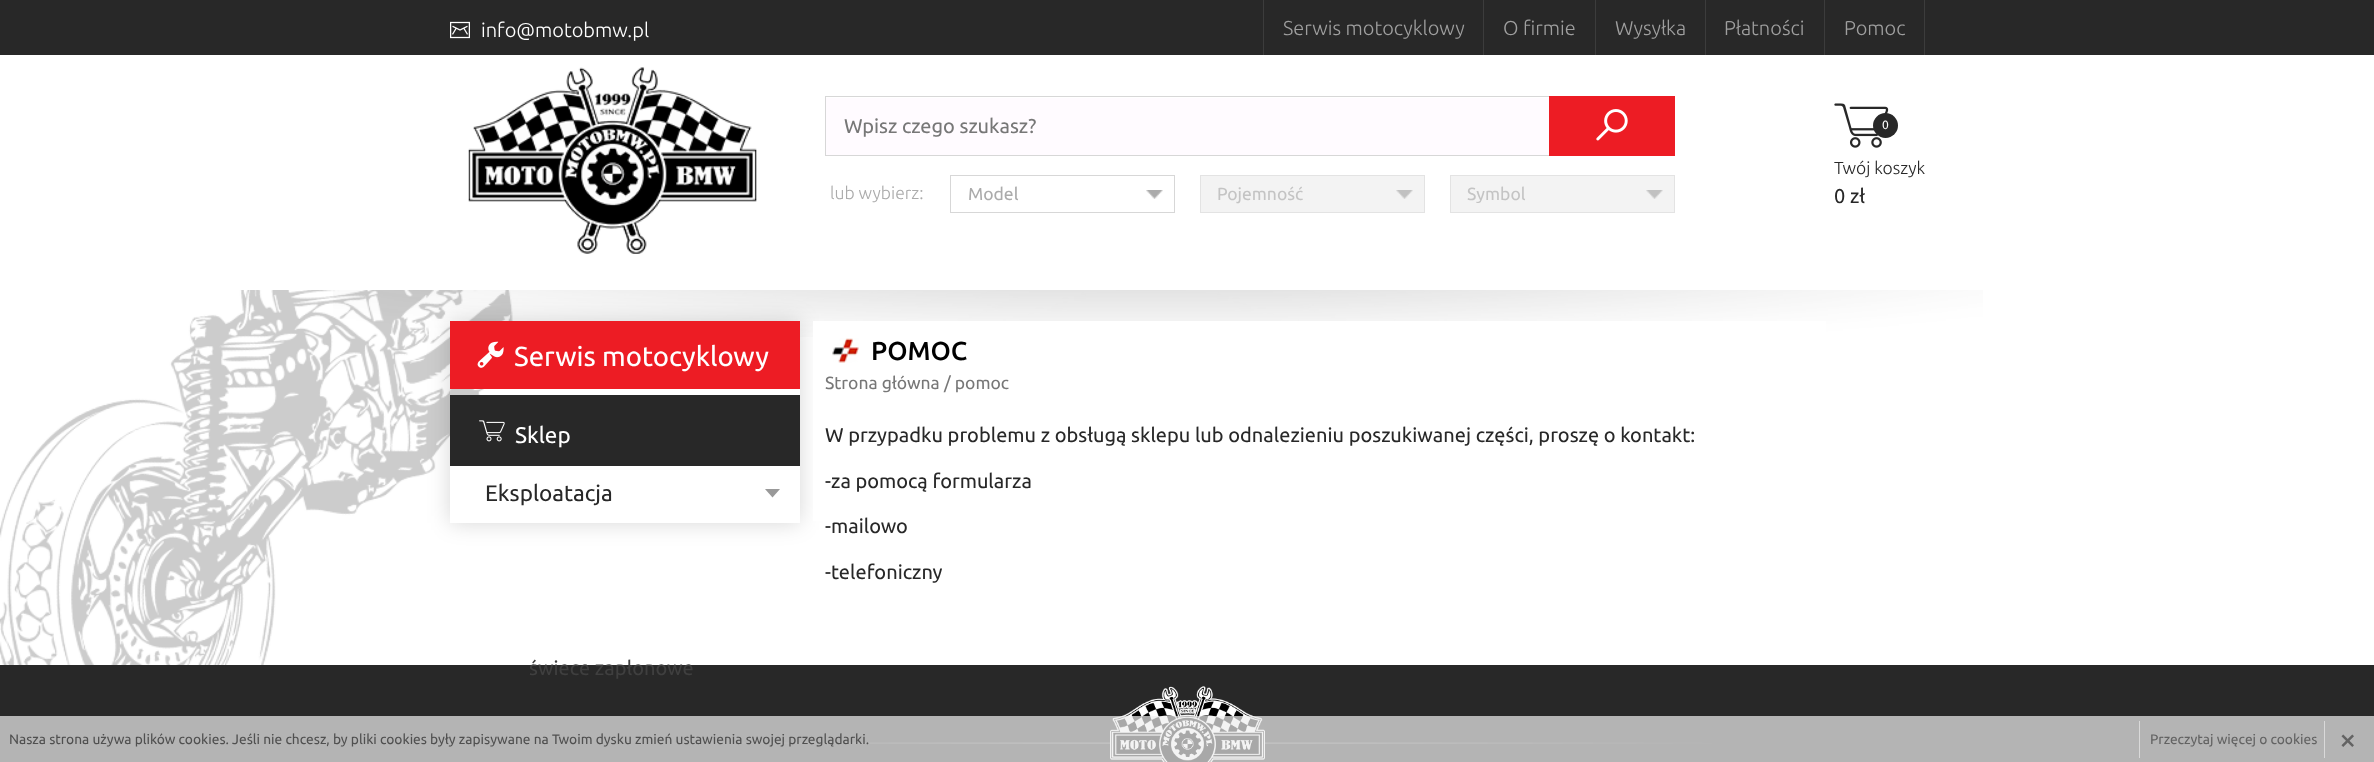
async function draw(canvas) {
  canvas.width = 2374;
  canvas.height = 762;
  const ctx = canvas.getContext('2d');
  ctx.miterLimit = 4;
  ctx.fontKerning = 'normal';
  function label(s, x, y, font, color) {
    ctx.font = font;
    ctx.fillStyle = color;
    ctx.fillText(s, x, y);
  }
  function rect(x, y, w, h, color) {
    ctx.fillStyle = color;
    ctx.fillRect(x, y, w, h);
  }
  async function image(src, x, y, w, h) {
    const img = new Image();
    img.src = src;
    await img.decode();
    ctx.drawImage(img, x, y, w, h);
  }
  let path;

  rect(0, 0, 2374, 762, '#fff');
  rect(0, 0, 2374, 55, '#282828');
  await image('assets/img1.png', 450, 21, 20, 18);
  label('info@motobmw.pl', 481, 37, '300 20px Ubuntu', '#fff');
  rect(1483, 0, 1, 55, '#3c3c3c');
  rect(1263, 0, 1, 55, '#3c3c3c');
  label('Serwis motocyklowy', 1283, 35, '300 20px Ubuntu', '#9f9f9f');
  rect(1595, 0, 1, 55, '#3c3c3c');
  label('O firmie', 1503, 35, '300 20px Ubuntu', '#9f9f9f');
  rect(1705, 0, 1, 55, '#3c3c3c');
  label('Wysyłka', 1615, 35, '300 20px Ubuntu', '#9f9f9f');
  rect(1824, 0, 1, 55, '#3c3c3c');
  label('Płatności', 1724, 35, '300 20px Ubuntu', '#9f9f9f');
  rect(1924, 0, 1, 55, '#3c3c3c');
  label('Pomoc', 1844, 35, '300 20px Ubuntu', '#9f9f9f');
  await image('assets/img2.png', 468, 67, 289, 187);
  rect(826, 98, 723, 57, '#fffbff');
  ctx.strokeStyle = '#d7d7d7';
  ctx.strokeRect(825.5, 96.5, 849, 59);
  label('Wpisz czego szukasz?', 844, 133, '20px Ubuntu', '#777');
  rect(1549, 96, 126, 60, '#ed1c24');
  await image('assets/img3.png', 1596, 109, 32, 32);
  await image('assets/img4.png', 1834, 103, 55, 45);
  ctx.fillStyle = '#282828';
  ctx.beginPath();
  ctx.arc(1885.5, 125.5, 12.5, 0, 2 * Math.PI);
  ctx.fill();
  label('0', 1882, 129, '12px Ubuntu', '#fff');
  label('Twój koszyk', 1834, 174, '300 17.5px Ubuntu', '#282828');
  label('0 zł', 1834, 203, '20px Ubuntu', '#282828');
  label('lub wybierz:', 830, 199, '300 17.5px Ubuntu', '#ababab');
  await image('assets/img5.png', 1146, 190, 17, 9);
  ctx.strokeRect(950.5, 175.5, 224, 37);
  label('Model', 968, 200, '17.5px Ubuntu', '#ababab');
  rect(1201, 176, 223, 36, '#f3f3f3');
  await image('assets/img6.png', 1396, 190, 17, 9);
  ctx.strokeStyle = '#e3e3e3';
  ctx.strokeRect(1200.5, 175.5, 224, 37);
  label('Pojemność', 1217, 200, '17.5px Ubuntu', '#c4c4c4');
  rect(1451, 176, 223, 36, '#f3f3f3');
  await image('assets/img6.png', 1646, 190, 17, 9);
  ctx.strokeRect(1450.5, 175.5, 224, 37);
  ctx.save();
  ctx.beginPath();
  ctx.rect(1466, 185, 178, 18);
  ctx.clip();
  label('Symbol', 1467, 200, '17.5px Ubuntu', '#c4c4c4');
  ctx.restore();
  await image('assets/img7.png', 0, 290, 513, 375);
  await image('assets/img8.png', 333, 290, 1650, 47);
  ctx.save();
  path = new Path2D('M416 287H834V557H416ZM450 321H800V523H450Z');
  ctx.clip(path, 'evenodd');
  ctx.fillStyle = '#00000029';
  ctx.filter = 'blur(11px)';
  ctx.beginPath();
  ctx.rect(450, 321, 350, 202);
  ctx.fill();
  ctx.filter = 'none';
  ctx.restore();
  rect(450, 321, 350, 68, '#ed1c24');
  await image('assets/img9.png', 477, 341, 27, 27);
  label('Serwis motocyklowy', 514, 366, '27.5px Ubuntu', '#fff');
  rect(450, 395, 350, 71, '#282828');
  await image('assets/img10.png', 479, 420, 26, 22);
  label('Sklep', 515, 443, '22.5px Ubuntu', '#fff');
  rect(450, 522, 350, 1, '#fff');
  label('Eksploatacja', 485, 501, '22.5px Ubuntu', '#282828');
  ctx.fillStyle = '#999';
  path = new Path2D('M765 489H780L772.5 497.5Z');
  ctx.fill(path);
  rect(0, 665, 2374, 97, '#282828');
  label('świece zapłonowe', 529, 675, '20px Ubuntu', '#3f3f3f');
  rect(813, 321, 1013, 200, '#fff');
  await image('assets/img11.png', 832, 338, 27, 25);
  label('POMOC', 871, 360, '500 26px Ubuntu', '#000');
  label('Strona główna', 825, 389, '17.5px Ubuntu', '#777');
  label('/ pomoc', 944, 389, '17.5px Ubuntu', '#777');
  label('W przypadku problemu z obsługą sklepu lub odnalezieniu poszukiwanej części, proszę o kontakt:', 825, 442, '20px Ubuntu', '#282828');
  label('-za pomocą formularza', 825, 488, '20px Ubuntu', '#282828');
  label('-mailowo', 825, 533, '20px Ubuntu', '#282828');
  label('-telefoniczny', 825, 579, '20px Ubuntu', '#282828');
  await image('assets/img12.png', 664, 742, 1048, 2);
  await image('assets/img13.png', 1110, 686, 155, 76);
  rect(0, 716, 2374, 46, '#f0f0f0b3');
  label('Nasza strona używa plików cookies. Jeśli nie chcesz, by pliki cookies były zapisywane na Twoim dysku zmień ustawienia swojej przeglądarki.', 9, 744, '13.75px Ubuntu', '#505050');
  rect(2139, 721, 1, 37, '#d9d9d9');
  label('Przeczytaj więcej o cookies', 2150, 744, '13.75px Ubuntu', '#636363');
  rect(2324, 721, 1, 37, '#d9d9d9');
  label('×', 2339, 750, '31px Ubuntu', '#636363');
}

draw(document.querySelector('canvas'));
